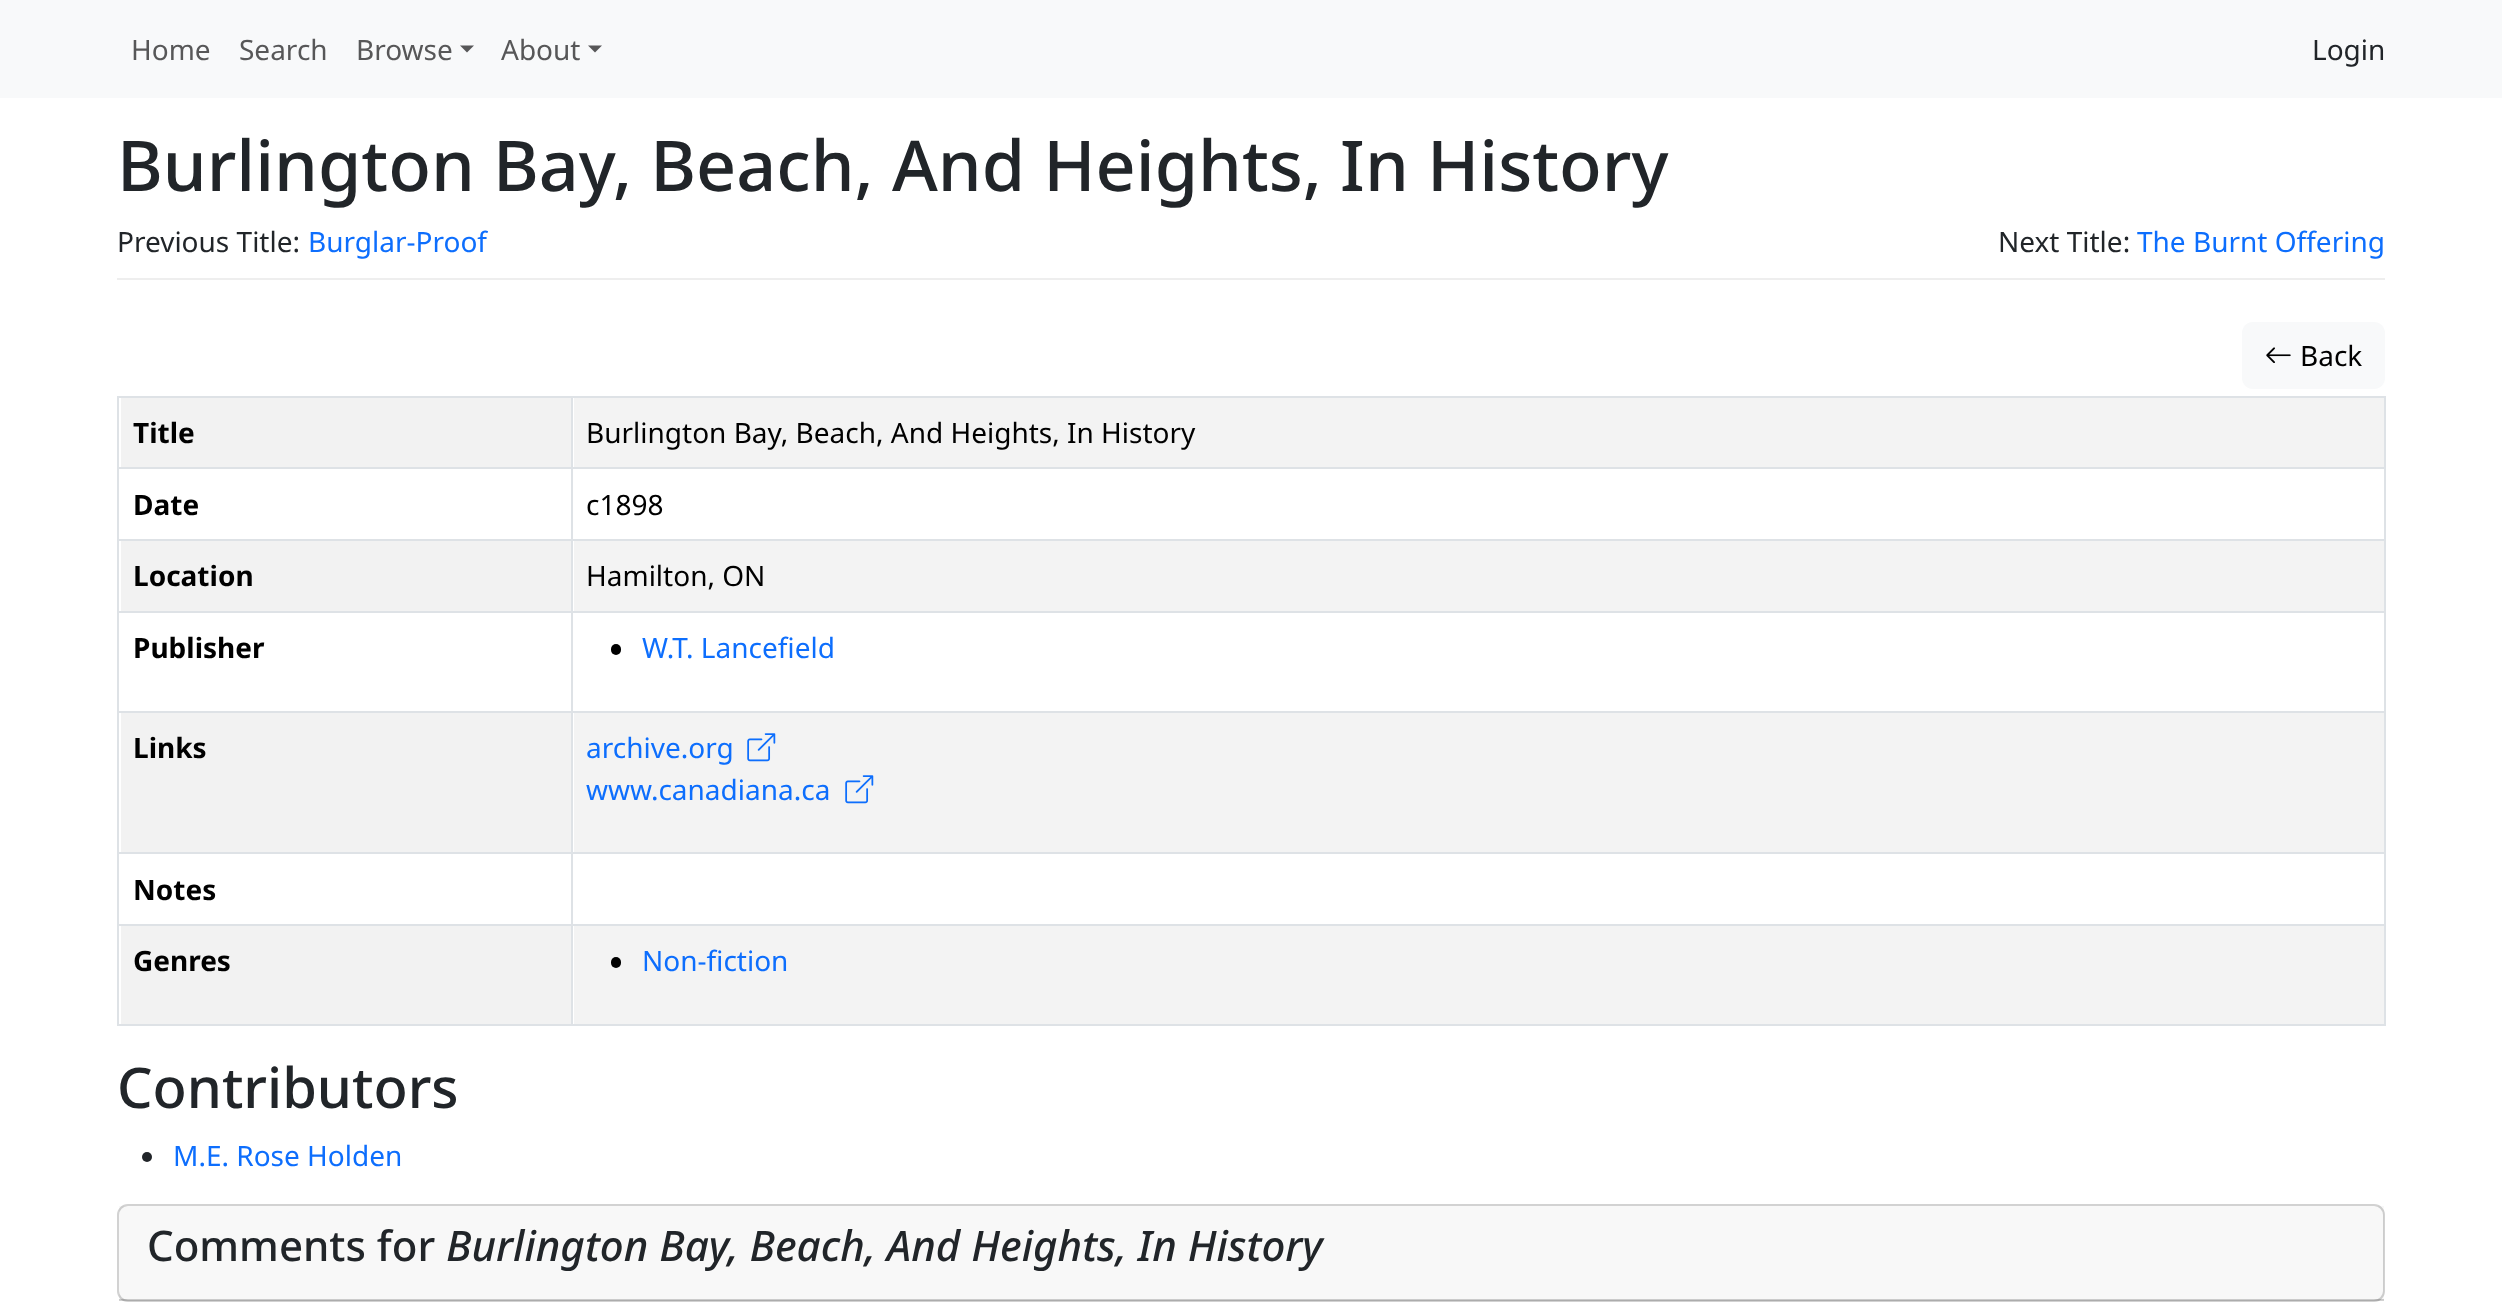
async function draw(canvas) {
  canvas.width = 2502;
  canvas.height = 1316;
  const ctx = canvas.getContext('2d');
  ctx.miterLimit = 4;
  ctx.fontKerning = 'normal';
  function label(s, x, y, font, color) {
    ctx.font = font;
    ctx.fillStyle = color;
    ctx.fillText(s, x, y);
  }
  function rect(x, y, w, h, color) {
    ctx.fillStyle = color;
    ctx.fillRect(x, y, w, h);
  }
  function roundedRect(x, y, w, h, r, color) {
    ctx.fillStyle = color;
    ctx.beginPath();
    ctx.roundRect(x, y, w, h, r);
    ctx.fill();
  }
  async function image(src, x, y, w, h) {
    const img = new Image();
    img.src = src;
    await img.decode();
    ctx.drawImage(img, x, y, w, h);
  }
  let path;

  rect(0, 0, 2502, 1316, '#fff');
  rect(0, 0, 2502, 98, '#f8f9fa');
  label('Home', 131, 60, '28px Noto Sans', '#575758');
  label('Search', 239, 60, '28px Noto Sans', '#575758');
  label('Browse', 356, 60, '28px Noto Sans', '#575758');
  path = new Path2D('M460 45.5H474L467 52.5Z');
  ctx.fill(path);
  label('About', 501, 60, '28px Noto Sans', '#575758');
  path = new Path2D('M588 45.5H602L595 52.5Z');
  ctx.fill(path);
  label('Login', 2312, 60, '28px Noto Sans', '#212529');
  rect(117, 278, 2268, 2, '#eee');
  label('Burlington Bay, Beach, And Heights, In History', 117, 191, '500 70px Noto Sans', '#212529');
  label('Previous Title:', 117, 252, '28px Noto Sans', '#212529');
  label('Burglar-Proof', 308, 252, '28px Noto Sans', '#0d6efd');
  label('Next Title:', 1998, 252, '28px Noto Sans', '#212529');
  label('The Burnt Offering', 2137, 252, '28px Noto Sans', '#0d6efd');
  roundedRect(2242, 322, 143, 67, 11, '#f8f9fa');
  await image('assets/img1.png', 2266, 347, 25, 16);
  label('Back', 2300, 366, '28px Noto Sans', '#000');
  rect(117, 396, 2268, 2, '#dee2e6');
  rect(121, 398, 450, 69, '#f2f2f2');
  label('Title', 133, 443, 'bold 28px Noto Sans', '#000');
  rect(574, 398, 1810, 69, '#f3f3f3');
  label('Burlington Bay, Beach, And Heights, In History', 586, 443, '28px Noto Sans', '#000');
  rect(117, 467, 2268, 2, '#dee2e6');
  label('Date', 133, 515, 'bold 28px Noto Sans', '#000');
  label('c1898', 586, 515, '28px Noto Sans', '#000');
  rect(117, 539, 2268, 2, '#dee2e6');
  rect(121, 541, 450, 70, '#f2f2f2');
  label('Location', 133, 586, 'bold 28px Noto Sans', '#000');
  rect(574, 541, 1810, 70, '#f3f3f3');
  label('Hamilton, ON', 586, 586, '28px Noto Sans', '#000');
  rect(117, 611, 2268, 2, '#dee2e6');
  label('Publisher', 133, 658, 'bold 28px Noto Sans', '#000');
  roundedRect(611, 644, 10, 11, 5, '#000');
  label('W.T. Lancefield', 642, 658, '28px Noto Sans', '#0d6efd');
  rect(117, 711, 2268, 2, '#dee2e6');
  rect(121, 713, 450, 139, '#f2f2f2');
  label('Links', 133, 758, 'bold 28px Noto Sans', '#000');
  rect(574, 713, 1810, 139, '#f3f3f3');
  label('archive.org', 586, 758, '28px Noto Sans', '#0d6efd');
  await image('assets/img2.png', 747, 733, 29, 29);
  label('www.canadiana.ca', 586, 800, '28px Noto Sans', '#0d6efd');
  await image('assets/img2.png', 845, 775, 29, 29);
  rect(117, 852, 2268, 2, '#dee2e6');
  label('Notes', 133, 900, 'bold 28px Noto Sans', '#000');
  rect(117, 924, 2268, 2, '#dee2e6');
  rect(117, 1024, 2268, 2, '#dee2e6');
  rect(121, 926, 450, 98, '#f2f2f2');
  rect(117, 396, 2, 630, '#dee2e6');
  label('Genres', 133, 971, 'bold 28px Noto Sans', '#000');
  rect(574, 926, 1810, 98, '#f3f3f3');
  rect(2384, 396, 2, 630, '#dee2e6');
  rect(571, 396, 2, 630, '#dee2e6');
  roundedRect(611, 957, 10, 11, 5, '#000');
  label('Non-fiction', 642, 971, '28px Noto Sans', '#0d6efd');
  label('Contributors', 117, 1108, '500 56px Noto Sans', '#212529');
  ctx.beginPath();
  ctx.arc(147, 1157, 5, 0, 2 * Math.PI);
  ctx.fill();
  label('M.E. Rose Holden', 173, 1166, '28px Noto Sans', '#0d6efd');
  ctx.beginPath();
  ctx.roundRect(118, 1205, 2266, 96, 10);
  ctx.strokeStyle = '#d2d2d2';
  ctx.lineWidth = 2;
  ctx.stroke();
  rect(119, 1206, 2265, 94, '#21252908');
  rect(119, 1299, 2265, 2, '#0000002e');
  label('Comments for', 147, 1261, '500 42px Noto Sans', '#212529');
  label('Burlington Bay, Beach, And Heights, In History', 446, 1261, 'italic 500 42px Noto Sans', '#212529');
}

draw(document.querySelector('canvas'));
